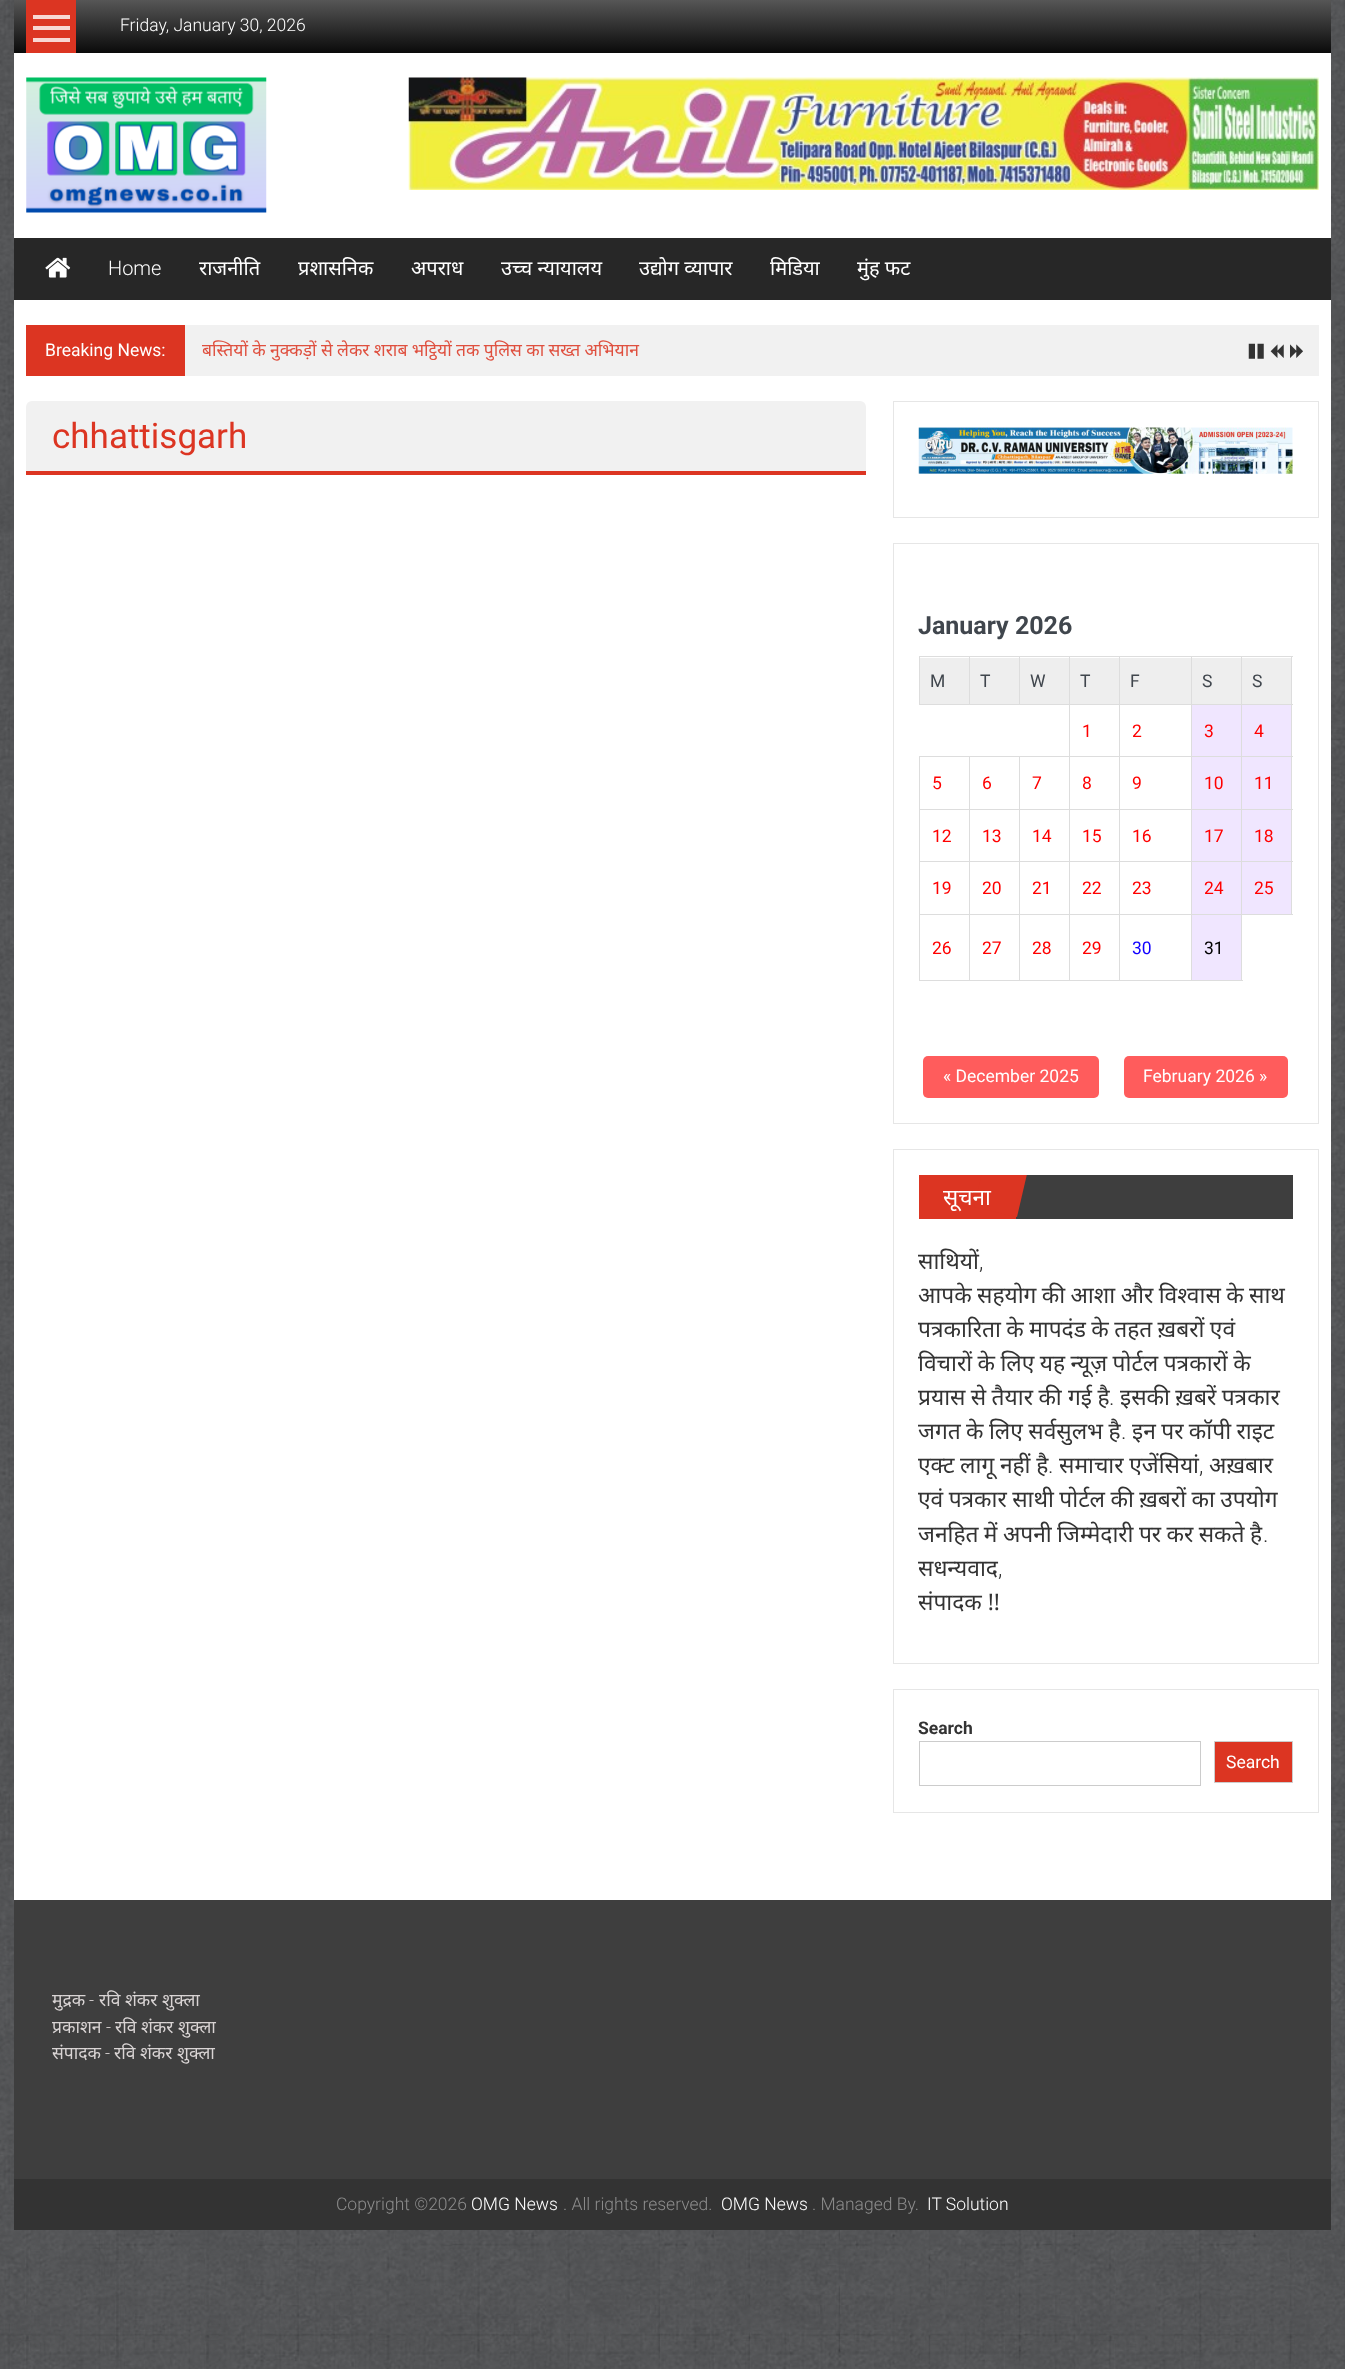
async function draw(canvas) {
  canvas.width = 1345;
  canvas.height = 2369;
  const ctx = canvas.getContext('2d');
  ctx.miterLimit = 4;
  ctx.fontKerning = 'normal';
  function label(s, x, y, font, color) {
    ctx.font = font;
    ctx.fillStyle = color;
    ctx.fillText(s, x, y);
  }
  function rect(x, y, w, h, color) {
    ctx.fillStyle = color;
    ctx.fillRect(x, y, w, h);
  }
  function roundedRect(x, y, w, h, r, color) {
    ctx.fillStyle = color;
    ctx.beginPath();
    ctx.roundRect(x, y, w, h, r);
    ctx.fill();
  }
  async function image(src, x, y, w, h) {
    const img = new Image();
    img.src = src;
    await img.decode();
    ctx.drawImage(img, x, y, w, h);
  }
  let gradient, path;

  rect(0, 0, 1345, 2369, '#fff');
  await image('assets/img1.png', 0, 0, 1345, 2369);
  rect(14, 53, 1317, 1847, '#fff');
  gradient = ctx.createLinearGradient(673, 0, 673, 53);
  gradient.addColorStop(0, '#565656');
  gradient.addColorStop(1, '#0a0a0a');
  ctx.fillStyle = gradient;
  ctx.fillRect(14, 0, 1317, 53);
  rect(26, 0, 50, 53, '#dc3522');
  rect(33, 15, 37, 4, '#f8d7d3');
  rect(33, 26, 37, 4, '#f8d7d3');
  rect(33, 38, 37, 4, '#f8d7d3');
  label('Friday, January 30, 2026', 120, 31, '300 17.5px Roboto', '#fff');
  await image('assets/img2.png', 26, 77, 241, 136);
  await image('assets/img3.png', 408, 77, 911, 113);
  rect(14, 238, 1317, 62, '#272727');
  await image('assets/img4.png', 45, 257, 26, 21);
  label('Home', 108, 275, '300 20px Roboto', '#fff');
  label('राजनीति', 199, 275, '20px Noto Sans', '#fff');
  label('प्रशासनिक', 298, 275, '20px Noto Sans', '#fff');
  label('अपराध', 411, 275, '20px Noto Sans', '#fff');
  label('उच्च न्यायालय', 501, 275, '20px Noto Sans', '#fff');
  label('उद्योग व्यापार', 639, 275, '20px Noto Sans', '#fff');
  label('मिडिया', 770, 275, '20px Noto Sans', '#fff');
  label('मुंह फट', 857, 275, '20px Noto Sans', '#fff');
  rect(185, 325, 1134, 51, '#f1f1f1');
  rect(26, 325, 159, 51, '#dc3522');
  label('Breaking News:', 45, 356, '17.5px Roboto', '#fff');
  ctx.wordSpacing = '-0.25px';
  label('बस्तियों के नुक्कड़ों से लेकर शराब भट्ठियों तक पुलिस का सख्त अभियान', 202, 356, '17.5px Noto Sans', '#df503f');
  await image('assets/img5.png', 1248, 343, 16, 16);
  await image('assets/img6.png', 1270, 344, 14, 14);
  await image('assets/img7.png', 1290, 344, 13, 14);
  ctx.fillStyle = '#f1f1f1';
  ctx.beginPath();
  ctx.roundRect(26, 401, 840, 74, [6, 6, 0, 0]);
  ctx.fill();
  rect(26, 471, 840, 4, '#dc3522');
  ctx.wordSpacing = '0px';
  label('chhattisgarh', 52, 448, '35px Roboto', '#dc3522');
  ctx.strokeStyle = '#e6e6e6';
  ctx.strokeRect(893.5, 401.5, 425, 116);
  await image('assets/img8.png', 918, 427, 375, 47);
  ctx.strokeRect(893.5, 543.5, 425, 580);
  label('January 2026', 918, 634, 'bold 25px Roboto', '#40464d');
  rect(920, 658, 49, 46, '#eee');
  rect(1241, 656, 52, 1, '#ddd');
  rect(1241, 704, 52, 1, '#ddd');
  rect(1192, 705, 49, 104, '#f0e6ff');
  rect(1242, 705, 49, 104, '#f0e6ff');
  rect(1241, 756, 52, 1, '#ddd');
  rect(1241, 809, 52, 1, '#ddd');
  rect(1192, 810, 49, 104, '#f0e6ff');
  rect(1242, 810, 49, 104, '#f0e6ff');
  rect(1241, 861, 52, 1, '#ddd');
  rect(1291, 861, 1, 54, '#ddd');
  rect(1191, 914, 52, 1, '#ddd');
  rect(1241, 914, 1, 67, '#ddd');
  rect(1241, 914, 52, 1, '#ddd');
  rect(1241, 861, 1, 54, '#ddd');
  rect(1191, 861, 52, 1, '#ddd');
  rect(1241, 809, 1, 54, '#ddd');
  rect(1191, 809, 52, 1, '#ddd');
  rect(1241, 756, 1, 54, '#ddd');
  rect(1191, 756, 52, 1, '#ddd');
  rect(1241, 704, 1, 54, '#ddd');
  rect(1191, 704, 52, 1, '#ddd');
  rect(1241, 656, 1, 49, '#ddd');
  rect(1191, 656, 52, 1, '#ddd');
  rect(1191, 980, 52, 1, '#ddd');
  rect(1191, 914, 1, 67, '#ddd');
  rect(1119, 914, 74, 1, '#ddd');
  rect(1191, 861, 1, 54, '#ddd');
  rect(1119, 861, 74, 1, '#ddd');
  rect(1191, 809, 1, 54, '#ddd');
  rect(1119, 809, 74, 1, '#ddd');
  rect(1191, 756, 1, 54, '#ddd');
  rect(1119, 756, 74, 1, '#ddd');
  rect(1191, 704, 1, 54, '#ddd');
  rect(1119, 704, 74, 1, '#ddd');
  rect(1191, 656, 1, 49, '#ddd');
  rect(1119, 656, 74, 1, '#ddd');
  rect(1119, 980, 74, 1, '#ddd');
  rect(1119, 914, 1, 67, '#ddd');
  rect(1069, 914, 51, 1, '#ddd');
  rect(1119, 861, 1, 54, '#ddd');
  rect(1069, 861, 51, 1, '#ddd');
  rect(1119, 809, 1, 54, '#ddd');
  rect(1069, 809, 51, 1, '#ddd');
  rect(1119, 756, 1, 54, '#ddd');
  rect(1069, 756, 51, 1, '#ddd');
  rect(1119, 704, 1, 54, '#ddd');
  rect(1069, 704, 51, 1, '#ddd');
  rect(1119, 656, 1, 49, '#ddd');
  rect(1069, 656, 51, 1, '#ddd');
  rect(1069, 980, 51, 1, '#ddd');
  rect(1069, 914, 1, 67, '#ddd');
  rect(1019, 914, 51, 1, '#ddd');
  rect(1069, 861, 1, 54, '#ddd');
  rect(1019, 861, 51, 1, '#ddd');
  rect(1069, 809, 1, 54, '#ddd');
  rect(1019, 809, 51, 1, '#ddd');
  rect(1069, 756, 1, 54, '#ddd');
  rect(1019, 756, 51, 1, '#ddd');
  rect(1069, 704, 1, 54, '#ddd');
  rect(1069, 656, 1, 49, '#ddd');
  rect(1019, 656, 51, 1, '#ddd');
  rect(1019, 704, 51, 1, '#ddd');
  rect(1019, 656, 1, 49, '#ddd');
  rect(969, 656, 51, 1, '#ddd');
  rect(969, 704, 51, 1, '#ddd');
  rect(969, 656, 1, 49, '#ddd');
  rect(919, 656, 51, 1, '#ddd');
  rect(919, 704, 51, 1, '#ddd');
  rect(919, 656, 1, 49, '#ddd');
  label('M', 930, 687, '17.5px Roboto', '#40464d');
  rect(970, 658, 49, 46, '#eee');
  label('T', 980, 687, '17.5px Roboto', '#40464d');
  rect(1020, 658, 49, 46, '#eee');
  label('W', 1030, 687, '17.5px Roboto', '#40464d');
  rect(1070, 658, 49, 46, '#eee');
  label('T', 1080, 687, '17.5px Roboto', '#40464d');
  rect(1120, 658, 71, 46, '#eee');
  label('F', 1130, 687, '17.5px Roboto', '#40464d');
  rect(1192, 658, 49, 46, '#eee');
  label('S', 1202, 687, '17.5px Roboto', '#40464d');
  rect(1242, 658, 49, 46, '#eee');
  rect(1291, 809, 1, 54, '#ddd');
  rect(1291, 756, 1, 54, '#ddd');
  rect(1291, 704, 1, 54, '#ddd');
  rect(1291, 656, 1, 49, '#ddd');
  label('S', 1252, 687, '17.5px Roboto', '#40464d');
  label('1', 1082, 737, '17.5px Roboto', '#f00');
  label('2', 1132, 737, '17.5px Roboto', '#f00');
  label('3', 1204, 737, '17.5px Roboto', '#f00');
  label('4', 1254, 737, '17.5px Roboto', '#f00');
  rect(1019, 980, 51, 1, '#ddd');
  rect(1019, 914, 1, 67, '#ddd');
  rect(969, 914, 51, 1, '#ddd');
  rect(1019, 861, 1, 54, '#ddd');
  rect(969, 861, 51, 1, '#ddd');
  rect(1019, 809, 1, 54, '#ddd');
  rect(969, 809, 51, 1, '#ddd');
  rect(1019, 756, 1, 54, '#ddd');
  rect(969, 756, 51, 1, '#ddd');
  rect(969, 980, 51, 1, '#ddd');
  rect(969, 914, 1, 67, '#ddd');
  rect(919, 914, 51, 1, '#ddd');
  rect(969, 861, 1, 54, '#ddd');
  rect(919, 861, 51, 1, '#ddd');
  rect(969, 809, 1, 54, '#ddd');
  rect(919, 809, 51, 1, '#ddd');
  rect(969, 756, 1, 54, '#ddd');
  rect(919, 756, 51, 1, '#ddd');
  rect(919, 980, 51, 1, '#ddd');
  rect(919, 914, 1, 67, '#ddd');
  rect(919, 861, 1, 54, '#ddd');
  rect(919, 809, 1, 54, '#ddd');
  rect(919, 756, 1, 54, '#ddd');
  label('5', 932, 789, '17.5px Roboto', '#f00');
  label('6', 982, 789, '17.5px Roboto', '#f00');
  label('7', 1032, 789, '17.5px Roboto', '#f00');
  label('8', 1082, 789, '17.5px Roboto', '#f00');
  label('9', 1132, 789, '17.5px Roboto', '#f00');
  label('10', 1204, 789, '17.5px Roboto', '#f00');
  label('11', 1254, 789, '17.5px Roboto', '#f00');
  label('12', 932, 842, '17.5px Roboto', '#f00');
  label('13', 982, 842, '17.5px Roboto', '#f00');
  label('14', 1032, 842, '17.5px Roboto', '#f00');
  label('15', 1082, 842, '17.5px Roboto', '#f00');
  label('16', 1132, 842, '17.5px Roboto', '#f00');
  label('17', 1204, 842, '17.5px Roboto', '#f00');
  label('18', 1254, 842, '17.5px Roboto', '#f00');
  label('19', 932, 894, '17.5px Roboto', '#f00');
  label('20', 982, 894, '17.5px Roboto', '#f00');
  label('21', 1032, 894, '17.5px Roboto', '#f00');
  label('22', 1082, 894, '17.5px Roboto', '#f00');
  label('23', 1132, 894, '17.5px Roboto', '#f00');
  label('24', 1204, 894, '17.5px Roboto', '#f00');
  label('25', 1254, 894, '17.5px Roboto', '#f00');
  label('26', 932, 954, '17.5px Roboto', '#f00');
  label('27', 982, 954, '17.5px Roboto', '#f00');
  label('28', 1032, 954, '17.5px Roboto', '#f00');
  label('29', 1082, 954, '17.5px Roboto', '#f00');
  label('30', 1132, 954, '17.5px Roboto', '#10f');
  rect(1192, 915, 49, 65, '#f0e6ff');
  label('31', 1204, 954, '17.5px Roboto', '#000');
  roundedRect(923, 1056, 176, 42, 5, '#ff5c5c');
  label('« December 2025', 943, 1082, '17.5px Roboto', '#fff');
  roundedRect(1124, 1056, 164, 42, 5, '#ff5c5c');
  label('February 2026 »', 1143, 1082, '17.5px Roboto', '#fff');
  ctx.strokeRect(893.5, 1149.5, 425, 514);
  rect(1016, 1175, 277, 44, '#3e3e3e');
  rect(919, 1175, 97, 44, '#dc3522');
  ctx.save();
  ctx.beginPath();
  ctx.rect(919, 1175, 374, 44);
  ctx.clip();
  path = new Path2D('M1027 1174L1017 1217L974 1207L984 1164Z');
  ctx.fill(path);
  ctx.restore();
  label('सूचना', 943, 1205, '22.5px Noto Sans', '#fff');
  label('साथियों', 918, 1269, '22.75px Noto Sans', '#333');
  label(',', 979, 1269, '300 22.75px Roboto', '#333');
  ctx.wordSpacing = '-0.5px';
  label('आपके सहयोग की आशा और विश्वास के साथ', 918, 1303, '22.75px Noto Sans', '#333');
  label('पत्रकारिता के मापदंड के तहत ख़बरों एवं', 918, 1337, '22.75px Noto Sans', '#333');
  label('विचारों के लिए यह न्यूज़ पोर्टल पत्रकारों के', 918, 1371, '22.75px Noto Sans', '#333');
  label('प्रयास से तैयार की', 918, 1405, '22.75px Noto Sans', '#333');
  label('गई है', 1068, 1405, '22.75px Noto Sans', '#333');
  ctx.wordSpacing = '0px';
  label('.', 1109, 1405, '300 22.75px Roboto', '#333');
  ctx.wordSpacing = '-0.5px';
  label('इसकी ख़बरें पत्रकार', 1120, 1405, '22.75px Noto Sans', '#333');
  label('जगत के लिए सर्वसुलभ है', 918, 1439, '22.75px Noto Sans', '#333');
  ctx.wordSpacing = '0px';
  label('.', 1121, 1439, '300 22.75px Roboto', '#333');
  ctx.wordSpacing = '-0.5px';
  label('इन पर कॉपी राइट', 1132, 1439, '22.75px Noto Sans', '#333');
  ctx.wordSpacing = '-0.25px';
  label('एक्ट लागू नहीं है', 918, 1473, '22.75px Noto Sans', '#333');
  ctx.wordSpacing = '0px';
  label('.', 1048, 1473, '300 22.75px Roboto', '#333');
  ctx.wordSpacing = '-0.25px';
  label('समाचार एजेंसियां', 1059, 1473, '22.75px Noto Sans', '#333');
  ctx.wordSpacing = '0px';
  label(',', 1199, 1473, '300 22.75px Roboto', '#333');
  label('अख़बार', 1209, 1473, '22.75px Noto Sans', '#333');
  ctx.wordSpacing = '-0.5px';
  label('एवं पत्रकार साथी पोर्टल की ख़बरों का उपयोग', 918, 1507, '22.75px Noto Sans', '#333');
  label('जनहित में अपनी जिम्मेदारी पर कर सकते है', 918, 1542, '22.75px Noto Sans', '#333');
  ctx.wordSpacing = '0px';
  label('.', 1263, 1542, '300 22.75px Roboto', '#333');
  label('सधन्यवाद', 918, 1576, '22.75px Noto Sans', '#333');
  label(',', 998, 1576, '300 22.75px Roboto', '#333');
  label('संपादक !!', 918, 1610, '22.75px Noto Sans', '#333');
  ctx.strokeRect(893.5, 1689.5, 425, 123);
  label('Search', 918, 1734, 'bold 17.5px Roboto', '#333');
  ctx.strokeStyle = '#ccc';
  ctx.strokeRect(919.5, 1741.5, 281, 44);
  ctx.fillStyle = '#dc3522';
  ctx.beginPath();
  ctx.rect(1214.5, 1741.5, 78, 41);
  ctx.fill();
  ctx.stroke();
  label('Search', 1226, 1768, '17.5px Roboto', '#fff');
  rect(14, 1900, 1317, 279, '#3e3e3e');
  label('मुद्रक', 52, 2006, '17.5px Noto Sans', '#d9d4d4');
  label('-', 89, 2006, '300 17.5px Roboto', '#d9d4d4');
  label('रवि शंकर शुक्ला', 99, 2006, '17.5px Noto Sans', '#d9d4d4');
  label('प्रकाशन', 52, 2033, '17.5px Noto Sans', '#d9d4d4');
  label('-', 106, 2033, '300 17.5px Roboto', '#d9d4d4');
  label('रवि शंकर शुक्ला', 115, 2033, '17.5px Noto Sans', '#d9d4d4');
  label('संपादक', 52, 2059, '17.5px Noto Sans', '#d9d4d4');
  label('-', 105, 2059, '300 17.5px Roboto', '#d9d4d4');
  label('रवि शंकर शुक्ला', 114, 2059, '17.5px Noto Sans', '#d9d4d4');
  rect(14, 2179, 1317, 51, '#333');
  label('Copyright ©2026', 336, 2210, '300 17.5px Roboto', '#8c8c8c');
  label('OMG News', 471, 2210, '300 17.5px Roboto', '#fff');
  label('. All rights reserved.', 563, 2210, '300 17.5px Roboto', '#8c8c8c');
  label('OMG News', 721, 2210, '300 17.5px Roboto', '#fff');
  label('. Managed By.', 812, 2210, '300 17.5px Roboto', '#8c8c8c');
  label('IT Solution', 927, 2210, '300 17.5px Roboto', '#fff');
}

draw(document.querySelector('canvas'));
